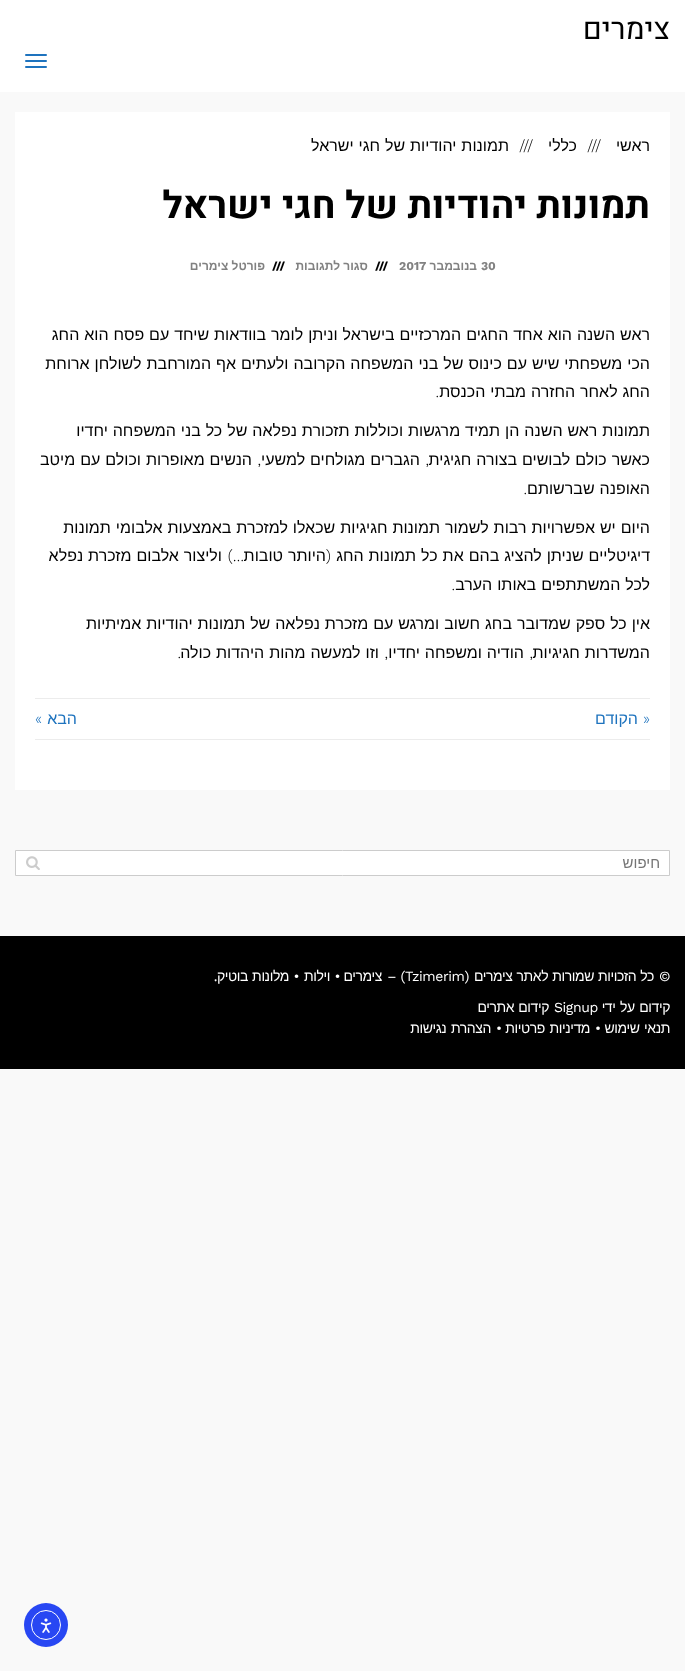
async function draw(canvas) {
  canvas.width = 685;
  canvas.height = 1671;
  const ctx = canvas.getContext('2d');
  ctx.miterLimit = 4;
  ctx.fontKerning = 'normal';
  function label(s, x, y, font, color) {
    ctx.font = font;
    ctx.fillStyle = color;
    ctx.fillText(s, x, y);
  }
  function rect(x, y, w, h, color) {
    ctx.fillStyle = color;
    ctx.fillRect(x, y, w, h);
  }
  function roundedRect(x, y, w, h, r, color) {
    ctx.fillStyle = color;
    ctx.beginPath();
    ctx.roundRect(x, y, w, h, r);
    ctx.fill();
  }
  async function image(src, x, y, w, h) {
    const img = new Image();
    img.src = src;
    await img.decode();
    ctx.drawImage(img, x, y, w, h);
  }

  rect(0, 0, 685, 1671, '#f9f9f9');
  rect(0, 0, 685, 92, '#fff');
  ctx.direction = 'rtl';
  label('צימרים', 670, 39, '30px Heebo', '#000');
  roundedRect(25, 54, 22, 2, 1, '#1e73be');
  roundedRect(25, 60, 22, 2, 1, '#1e73be');
  roundedRect(25, 66, 22, 2, 1, '#1e73be');
  rect(15, 112, 655, 678, '#fff');
  label('ראשי', 650, 151, '16px Liberation Sans', '#000');
  ctx.direction = 'ltr';
  label('///', 587, 151, '300 16px Work Sans', '#000');
  ctx.direction = 'rtl';
  label('כללי', 577, 151, '16px Liberation Sans', '#000');
  ctx.direction = 'ltr';
  label('///', 519, 151, '300 16px Work Sans', '#000');
  ctx.wordSpacing = '0.5px';
  ctx.direction = 'rtl';
  label('תמונות יהודיות של חגי ישראל', 509, 151, '16px Liberation Sans', '#000');
  ctx.wordSpacing = '0px';
  label('תמונות יהודיות של חגי ישראל', 650, 218, 'bold 38px Heebo', '#000');
  ctx.direction = 'ltr';
  label('30', 481, 270, 'bold 12px Work Sans', '#818181');
  ctx.direction = 'rtl';
  label('בנובמבר', 477, 270, 'bold 12px Liberation Sans', '#818181');
  ctx.direction = 'ltr';
  label('2017', 399, 270, 'bold 12px Work Sans', '#818181');
  label('///', 375, 270, 'bold 12px Work Sans', '#000');
  ctx.direction = 'rtl';
  label('סגור לתגובות', 368, 270, 'bold 12px Liberation Sans', '#818181');
  ctx.direction = 'ltr';
  label('///', 272, 270, 'bold 12px Work Sans', '#000');
  ctx.direction = 'rtl';
  label('פורטל צימרים', 265, 270, 'bold 12px Liberation Sans', '#818181');
  ctx.wordSpacing = '0.5px';
  label('ראש השנה הוא אחד החגים המרכזיים בישראל וניתן לומר בוודאות שיחד עם פסח הוא החג', 650, 340, '16px Liberation Sans', '#000');
  label('הכי משפחתי שיש עם כינוס של בני המשפחה הקרובה ולעתים אף המורחבת לשולחן ארוחת', 650, 369, '16px Liberation Sans', '#000');
  label('החג לאחר החזרה מבתי הכנסת', 650, 397, '16px Liberation Sans', '#000');
  ctx.wordSpacing = '0px';
  label('.', 439, 397, '300 16px Work Sans', '#000');
  ctx.wordSpacing = '0.5px';
  label('תמונות ראש השנה הן תמיד מרגשות וכוללות תזכורת נפלאה של כל בני המשפחה יחדיו', 650, 436, '16px Liberation Sans', '#000');
  label('כאשר כולם לבושים בצורה חגיגית', 650, 465, '16px Liberation Sans', '#000');
  ctx.wordSpacing = '0px';
  label(',', 429, 465, '300 16px Work Sans', '#000');
  ctx.wordSpacing = '0.5px';
  label('הגברים מגולחים למשעי', 420, 465, '16px Liberation Sans', '#000');
  ctx.wordSpacing = '0px';
  label(',', 261, 465, '300 16px Work Sans', '#000');
  ctx.wordSpacing = '0.5px';
  label('הנשים מאופרות וכולם עם מיטב', 252, 465, '16px Liberation Sans', '#000');
  label('האופנה שברשותם', 650, 494, '16px Liberation Sans', '#000');
  ctx.wordSpacing = '0px';
  label('.', 527, 494, '300 16px Work Sans', '#000');
  ctx.wordSpacing = '0.5px';
  label('היום יש אפשרויות רבות לשמור תמונות חגיגיות שכאלו למזכרת באמצעות אלבומי תמונות', 650, 533, '16px Liberation Sans', '#000');
  label('דיגיטליים שניתן להציג בהם את כל תמונות החג', 650, 561, '16px Liberation Sans', '#000');
  ctx.wordSpacing = '0px';
  label('(', 331, 561, '300 16px Work Sans', '#000');
  ctx.wordSpacing = '0.5px';
  label('היותר טובות', 326, 561, '16px Liberation Sans', '#000');
  ctx.wordSpacing = '0px';
  label('…)', 244, 561, '300 16px Work Sans', '#000');
  ctx.wordSpacing = '0.5px';
  label('וליצור אלבום מזכרת נפלא', 222, 561, '16px Liberation Sans', '#000');
  label('לכל המשתתפים באותו הערב', 650, 590, '16px Liberation Sans', '#000');
  ctx.wordSpacing = '0px';
  label('.', 455, 590, '300 16px Work Sans', '#000');
  ctx.wordSpacing = '0.5px';
  label('אין כל ספק שמדובר בחג חשוב ומרגש עם מזכרת נפלאה של תמונות יהודיות אמיתיות', 650, 629, '16px Liberation Sans', '#000');
  label('המשדרות חגיגיות', 650, 658, '16px Liberation Sans', '#000');
  ctx.wordSpacing = '0px';
  label(',', 533, 658, '300 16px Work Sans', '#000');
  ctx.wordSpacing = '0.5px';
  label('הודיה ומשפחה יחדיו', 524, 658, '16px Liberation Sans', '#000');
  ctx.wordSpacing = '0px';
  label(',', 388, 658, '300 16px Work Sans', '#000');
  ctx.wordSpacing = '0.5px';
  label('וזו למעשה מהות היהדות כולה', 379, 658, '16px Liberation Sans', '#000');
  ctx.wordSpacing = '0px';
  label('.', 181, 658, '300 16px Work Sans', '#000');
  rect(35, 698, 615, 1, '#ececec');
  rect(35, 739, 615, 1, '#ececec');
  label('«', 650, 724, '300 16px Work Sans', '#1e73be');
  label('הקודם', 638, 724, '16px Liberation Sans', '#1e73be');
  label('הבא', 77, 724, '16px Liberation Sans', '#1e73be');
  label('»', 42, 724, '300 16px Work Sans', '#1e73be');
  ctx.fillStyle = '#fff';
  ctx.beginPath();
  ctx.rect(15.5, 850.5, 654, 25);
  ctx.fill();
  ctx.strokeStyle = '#ccc';
  ctx.stroke();
  label('חיפוש', 660, 868, '15px Liberation Sans', '#757575');
  await image('assets/img1.png', 26, 856, 14, 14);
  rect(0, 936, 685, 133, '#000');
  ctx.letterSpacing = '-0.4px';
  label('©', 670, 981, '14px Work Sans', '#fff');
  ctx.wordSpacing = '0.5px';
  label('כל הזכויות שמורות לאתר צימרים', 654, 981, '14px Liberation Sans', '#fff');
  ctx.wordSpacing = '0px';
  label('(', 469, 981, '14px Work Sans', '#fff');
  ctx.direction = 'ltr';
  label('Tzimerim', 405, 981, '14px Work Sans', '#fff');
  ctx.direction = 'rtl';
  label(') –', 405, 981, '14px Work Sans', '#fff');
  label('צימרים', 382, 981, '14px Liberation Sans', '#fff');
  label('•', 340, 981, '14px Work Sans', '#fff');
  label('וילות', 330, 981, '14px Liberation Sans', '#fff');
  label('•', 299, 981, '14px Work Sans', '#fff');
  label('מלונות', 289, 981, '14px Liberation Sans', '#fff');
  label('בוטיק', 248, 981, '14px Liberation Sans', '#fff');
  label('.', 217, 981, '14px Work Sans', '#fff');
  ctx.wordSpacing = '1px';
  label('קידום על ידי', 670, 1012, '14px Liberation Sans', '#fff');
  ctx.wordSpacing = '0px';
  ctx.direction = 'ltr';
  label('Signup', 554, 1012, '14px Work Sans', '#fff');
  ctx.wordSpacing = '0.5px';
  ctx.direction = 'rtl';
  label('קידום אתרים', 549, 1012, '14px Liberation Sans', '#fff');
  ctx.wordSpacing = '1px';
  label('תנאי שימוש', 670, 1033, '14px Liberation Sans', '#fff');
  ctx.wordSpacing = '0px';
  ctx.direction = 'ltr';
  label('•', 595, 1033, '14px Work Sans', '#fff');
  ctx.wordSpacing = '1px';
  ctx.direction = 'rtl';
  label('מדיניות פרטיות', 590, 1033, '14px Liberation Sans', '#fff');
  ctx.wordSpacing = '0px';
  ctx.direction = 'ltr';
  label('•', 496, 1033, '14px Work Sans', '#fff');
  ctx.wordSpacing = '1px';
  ctx.direction = 'rtl';
  label('הצהרת נגישות', 491, 1033, '14px Liberation Sans', '#fff');
  ctx.fillStyle = '#2847f3';
  ctx.beginPath();
  ctx.arc(46, 1625, 22, 0, 2 * Math.PI);
  ctx.fill();
  ctx.beginPath();
  ctx.arc(46, 1625, 14.5, 0, 2 * Math.PI);
  ctx.strokeStyle = '#fff';
  ctx.stroke();
  await image('assets/img2.png', 40, 1618, 12, 15);
}

draw(document.querySelector('canvas'));
